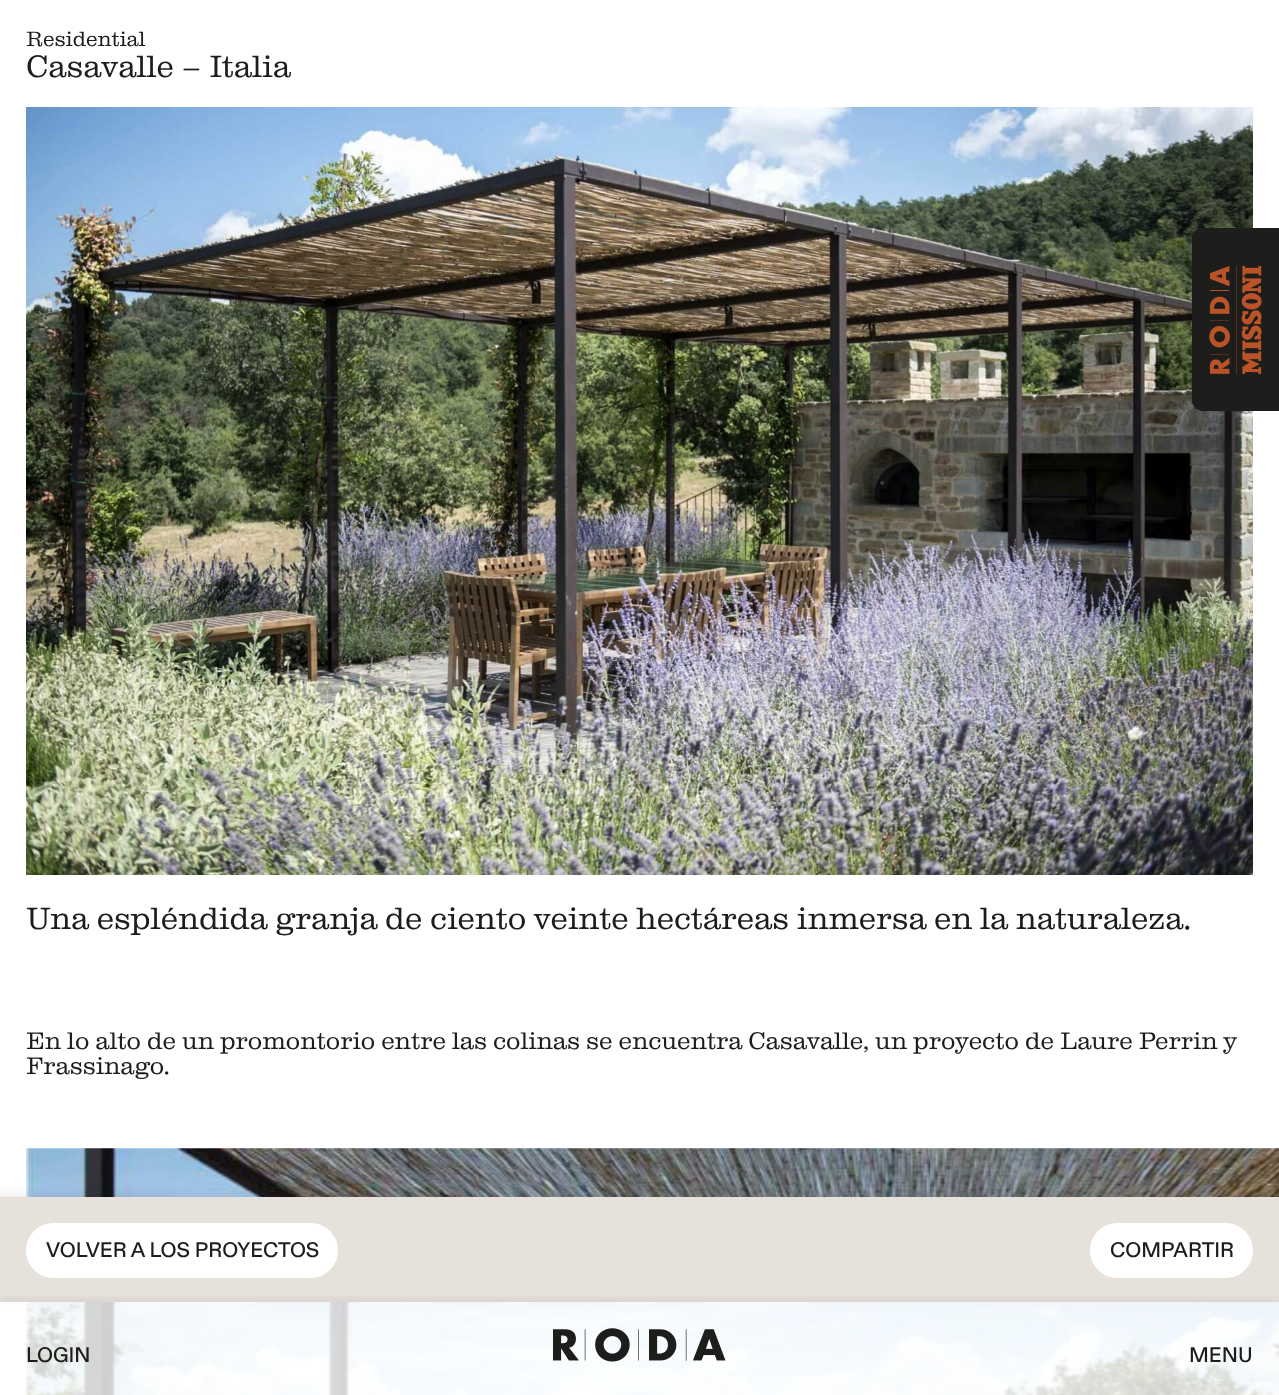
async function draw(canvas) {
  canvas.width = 1279;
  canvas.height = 1395;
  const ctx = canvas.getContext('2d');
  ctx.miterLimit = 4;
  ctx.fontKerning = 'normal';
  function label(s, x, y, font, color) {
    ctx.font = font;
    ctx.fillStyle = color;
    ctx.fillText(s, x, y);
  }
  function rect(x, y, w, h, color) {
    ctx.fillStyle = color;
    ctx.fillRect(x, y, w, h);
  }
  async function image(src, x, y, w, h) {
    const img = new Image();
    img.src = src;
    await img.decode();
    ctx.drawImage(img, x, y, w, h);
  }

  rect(0, 0, 1279, 1395, '#fff');
  label('Residential', 26, 46, '21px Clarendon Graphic', '#1d1d1b');
  label('Casavalle – Italia', 26, 77, '31.5px Clarendon Graphic', '#1d1d1b');
  await image('assets/img1.png', 26, 107, 1227, 768);
  label('Una espléndida granja de ciento veinte hectáreas inmersa en la naturaleza.', 26, 929, '31.5px Clarendon Graphic', '#1d1d1b');
  label('En lo alto de un promontorio entre las colinas se encuentra Casavalle, un proyecto de Laure Perrin y', 26, 1049, '24.5px Clarendon Graphic', '#1d1d1b');
  label('Frassinago.', 26, 1074, '24.5px Clarendon Graphic', '#1d1d1b');
  await image('assets/img2.png', 26, 1148, 1253, 247);
  ctx.fillStyle = '#0000001a';
  ctx.filter = 'blur(7px)';
  ctx.beginPath();
  ctx.rect(-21, 1197, 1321, 105);
  ctx.fill();
  ctx.filter = 'none';
  rect(0, 1197, 1279, 105, '#e6e1da');
  ctx.fillStyle = '#fff';
  ctx.beginPath();
  ctx.roundRect(27, 1224, 310, 53, 26.5);
  ctx.fill();
  ctx.strokeStyle = '#fff';
  ctx.lineWidth = 2;
  ctx.stroke();
  label('VOLVER A LOS PROYECTOS', 46, 1257, '500 21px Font', '#1d1d1b');
  ctx.fillStyle = '#fff';
  ctx.beginPath();
  ctx.roundRect(1091, 1224, 161, 53, 26.5);
  ctx.fill();
  ctx.stroke();
  label('COMPARTIR', 1110, 1257, '500 21px Font', '#1d1d1b');
  ctx.save();
  ctx.beginPath();
  ctx.rect(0, 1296, 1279, 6);
  ctx.clip();
  ctx.fillStyle = '#0000001a';
  ctx.filter = 'blur(7px)';
  ctx.beginPath();
  ctx.rect(0, 1302, 1279, 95);
  ctx.fill();
  ctx.filter = 'none';
  ctx.restore();
  rect(0, 1302, 1279, 93, '#ffffffcc');
  label('LOGIN', 26, 1362, '500 21px Font', '#1d1d1b');
  await image('assets/img3.png', 553, 1328, 173, 34);
  label('MENU', 1189, 1362, '500 21px Font', '#1d1d1b');
  await image('assets/img4.png', 1192, 228, 87, 183);
}

draw(document.querySelector('canvas'));
